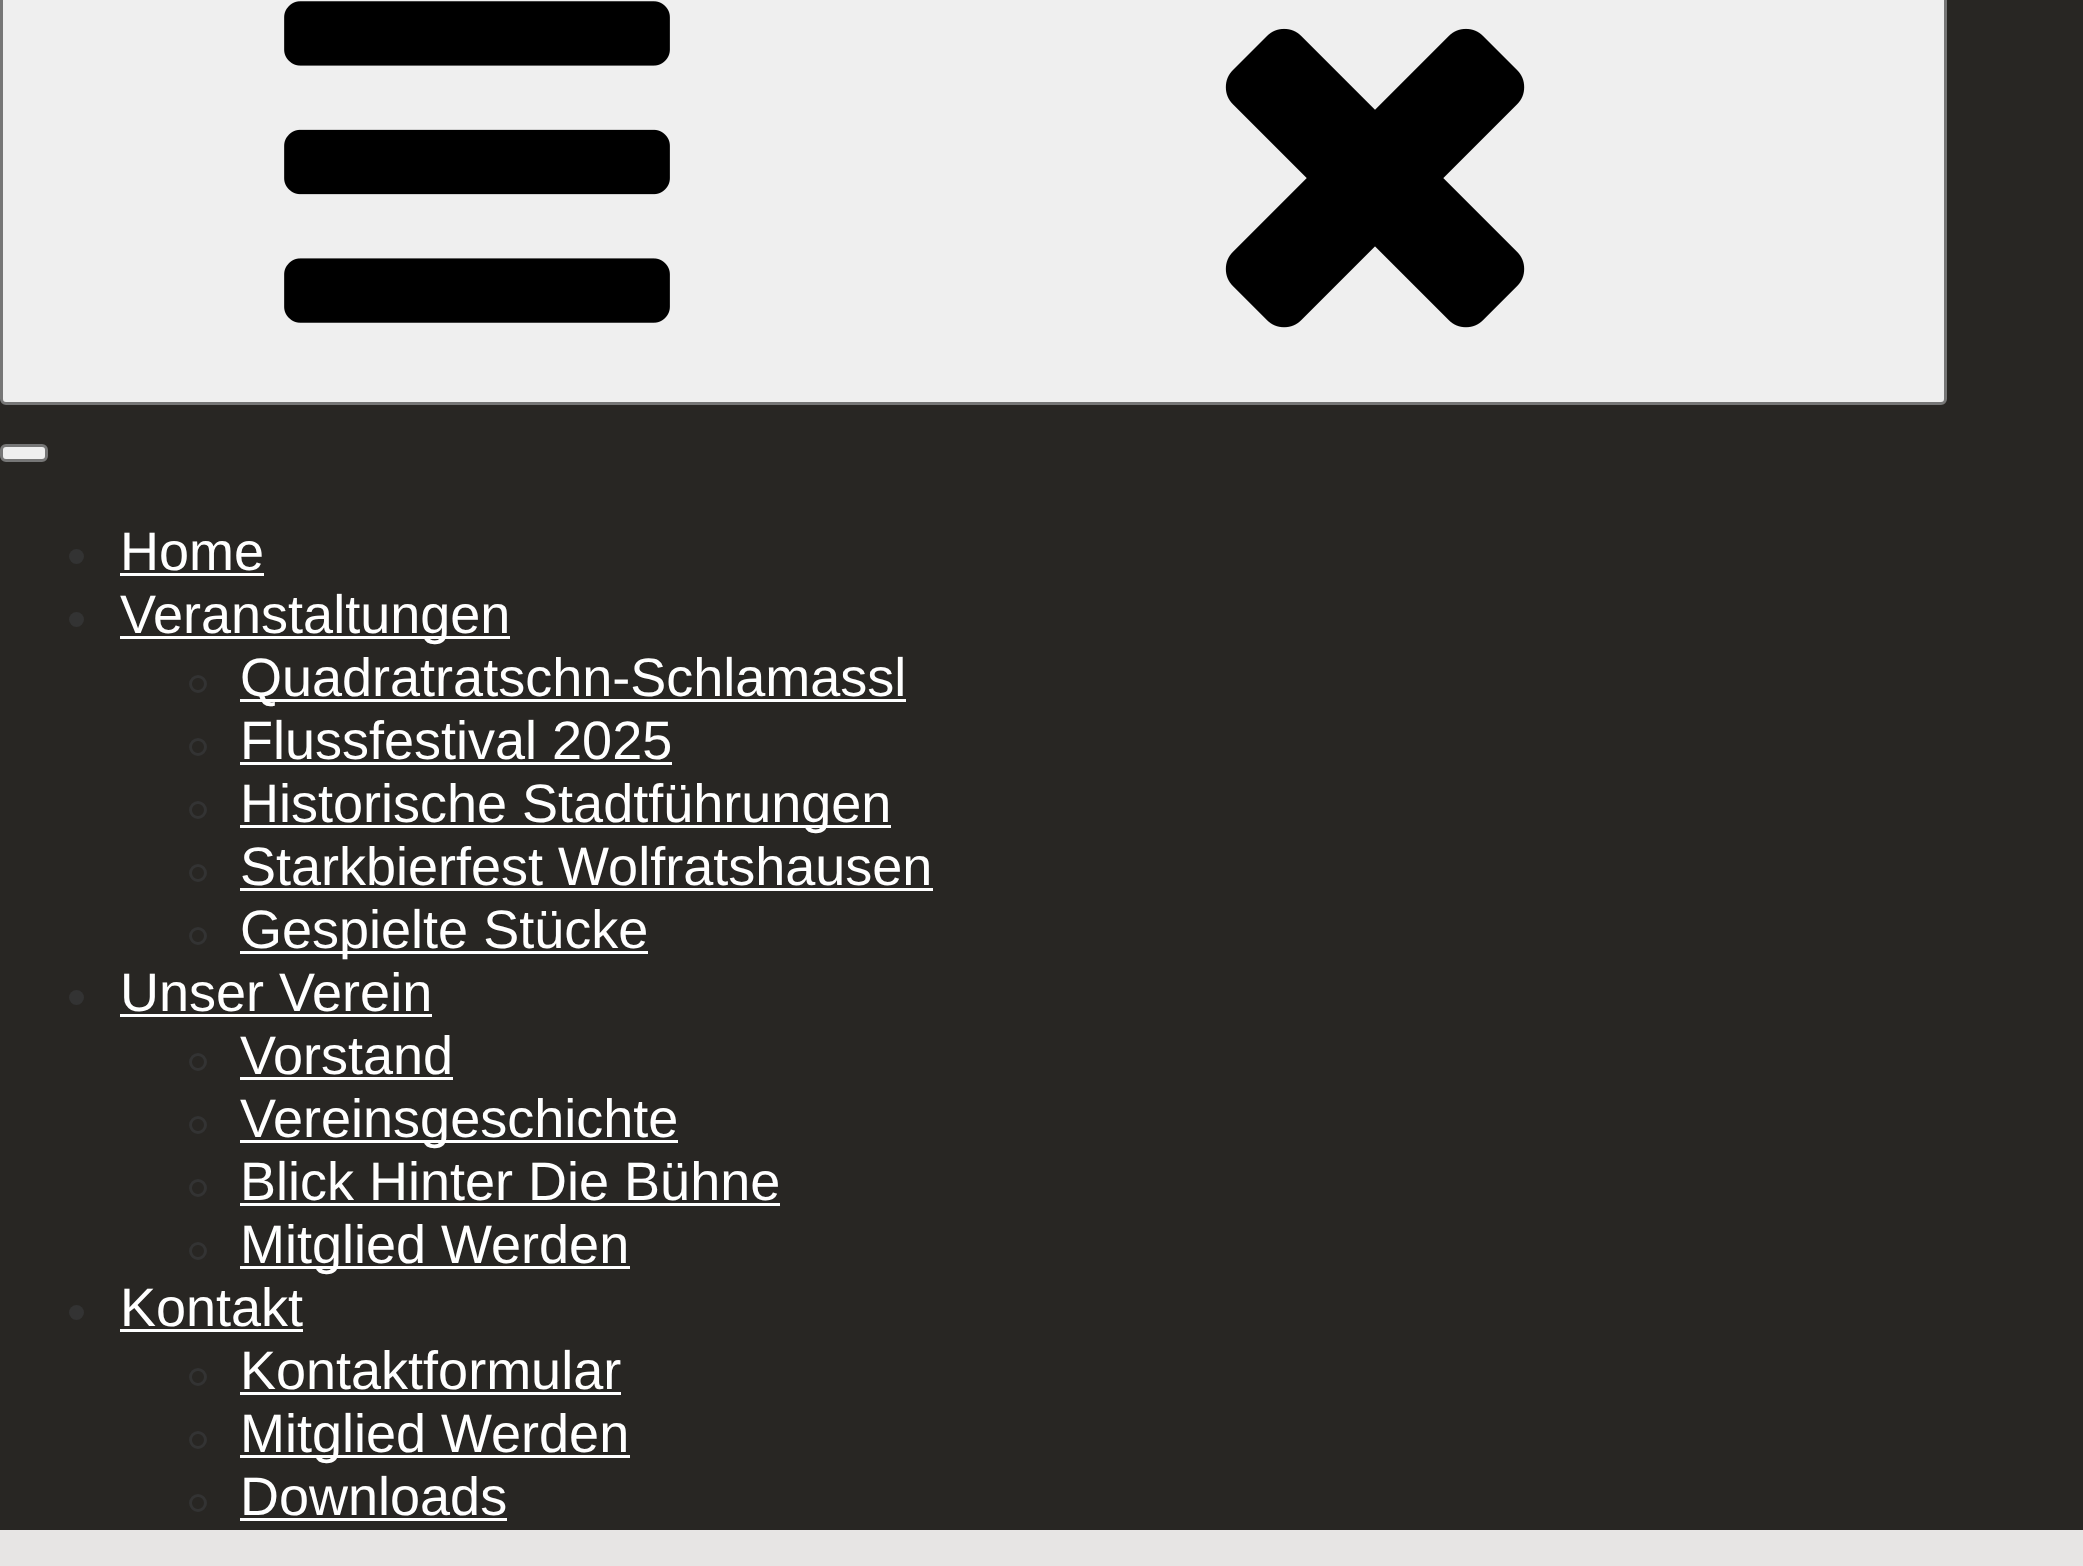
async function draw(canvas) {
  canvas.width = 2083;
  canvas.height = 1566;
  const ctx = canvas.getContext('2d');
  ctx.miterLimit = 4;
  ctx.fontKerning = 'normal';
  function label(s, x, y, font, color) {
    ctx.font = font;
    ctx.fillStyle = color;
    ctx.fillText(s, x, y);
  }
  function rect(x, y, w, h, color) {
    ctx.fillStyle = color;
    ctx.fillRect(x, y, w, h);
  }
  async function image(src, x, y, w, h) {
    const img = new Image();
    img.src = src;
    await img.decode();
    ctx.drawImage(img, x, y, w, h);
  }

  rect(0, 0, 2083, 1566, '#e7e5e4');
  rect(0, 0, 2083, 1530, '#282623');
  ctx.fillStyle = '#efefef';
  ctx.beginPath();
  ctx.roundRect(1.5, -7.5, 1944, 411, 4.5);
  ctx.fill();
  ctx.strokeStyle = '#767676';
  ctx.lineWidth = 3;
  ctx.stroke();
  await image('assets/img1.png', 284, 1, 386, 322);
  await image('assets/img2.png', 1225, 28, 300, 300);
  ctx.beginPath();
  ctx.roundRect(1.5, 445.5, 45, 15, 4.5);
  ctx.fill();
  ctx.stroke();
  ctx.fillStyle = '#333';
  ctx.beginPath();
  ctx.arc(76.5, 556.5, 7.5, 0, 2 * Math.PI);
  ctx.fill();
  label('Home', 120, 570, '54px Liberation Sans', '#fff');
  rect(120, 573, 144, 3, '#fff');
  ctx.fillStyle = '#333';
  ctx.beginPath();
  ctx.arc(76.5, 619.5, 7.5, 0, 2 * Math.PI);
  ctx.fill();
  rect(120, 636, 390, 3, '#fff');
  label('Veranstaltungen', 120, 633, '54px Liberation Sans', '#fff');
  ctx.beginPath();
  ctx.arc(198, 684, 7.5, 0, 2 * Math.PI);
  ctx.strokeStyle = '#333';
  ctx.stroke();
  rect(240, 699, 666, 3, '#fff');
  label('Quadratratschn-Schlamassl', 240, 696, '54px Liberation Sans', '#fff');
  ctx.beginPath();
  ctx.arc(198, 747, 7.5, 0, 2 * Math.PI);
  ctx.stroke();
  label('Flussfestival 2025', 240, 759, '54px Liberation Sans', '#fff');
  rect(240, 762, 432, 3, '#fff');
  ctx.beginPath();
  ctx.arc(198, 810, 7.5, 0, 2 * Math.PI);
  ctx.stroke();
  rect(240, 825, 651, 3, '#fff');
  label('Historische Stadtführungen', 240, 822, '54px Liberation Sans', '#fff');
  ctx.beginPath();
  ctx.arc(198, 873, 7.5, 0, 2 * Math.PI);
  ctx.stroke();
  label('Starkbierfest Wolfratshausen', 240, 885, '54px Liberation Sans', '#fff');
  rect(240, 888, 693, 3, '#fff');
  ctx.beginPath();
  ctx.arc(198, 936, 7.5, 0, 2 * Math.PI);
  ctx.stroke();
  rect(240, 951, 408, 3, '#fff');
  label('Gespielte Stücke', 240, 948, '54px Liberation Sans', '#fff');
  ctx.fillStyle = '#333';
  ctx.beginPath();
  ctx.arc(76.5, 997.5, 7.5, 0, 2 * Math.PI);
  ctx.fill();
  label('Unser Verein', 120, 1011, '54px Liberation Sans', '#fff');
  rect(120, 1014, 312, 3, '#fff');
  ctx.beginPath();
  ctx.arc(198, 1062, 7.5, 0, 2 * Math.PI);
  ctx.stroke();
  label('Vorstand', 240, 1074, '54px Liberation Sans', '#fff');
  rect(240, 1077, 213, 3, '#fff');
  ctx.beginPath();
  ctx.arc(198, 1125, 7.5, 0, 2 * Math.PI);
  ctx.stroke();
  rect(240, 1140, 438, 3, '#fff');
  label('Vereinsgeschichte', 240, 1137, '54px Liberation Sans', '#fff');
  ctx.beginPath();
  ctx.arc(198, 1188, 7.5, 0, 2 * Math.PI);
  ctx.stroke();
  label('Blick Hinter Die Bühne', 240, 1200, '54px Liberation Sans', '#fff');
  rect(240, 1203, 540, 3, '#fff');
  ctx.beginPath();
  ctx.arc(198, 1251, 7.5, 0, 2 * Math.PI);
  ctx.stroke();
  rect(240, 1266, 390, 3, '#fff');
  label('Mitglied Werden', 240, 1263, '54px Liberation Sans', '#fff');
  ctx.fillStyle = '#333';
  ctx.beginPath();
  ctx.arc(76.5, 1312.5, 7.5, 0, 2 * Math.PI);
  ctx.fill();
  label('Kontakt', 120, 1326, '54px Liberation Sans', '#fff');
  rect(120, 1329, 183, 3, '#fff');
  ctx.beginPath();
  ctx.arc(198, 1377, 7.5, 0, 2 * Math.PI);
  ctx.stroke();
  label('Kontaktformular', 240, 1389, '54px Liberation Sans', '#fff');
  rect(240, 1392, 381, 3, '#fff');
  ctx.beginPath();
  ctx.arc(198, 1440, 7.5, 0, 2 * Math.PI);
  ctx.stroke();
  rect(240, 1455, 390, 3, '#fff');
  label('Mitglied Werden', 240, 1452, '54px Liberation Sans', '#fff');
  ctx.beginPath();
  ctx.arc(198, 1503, 7.5, 0, 2 * Math.PI);
  ctx.stroke();
  label('Downloads', 240, 1515, '54px Liberation Sans', '#fff');
  rect(240, 1518, 267, 3, '#fff');
}

draw(document.querySelector('canvas'));
